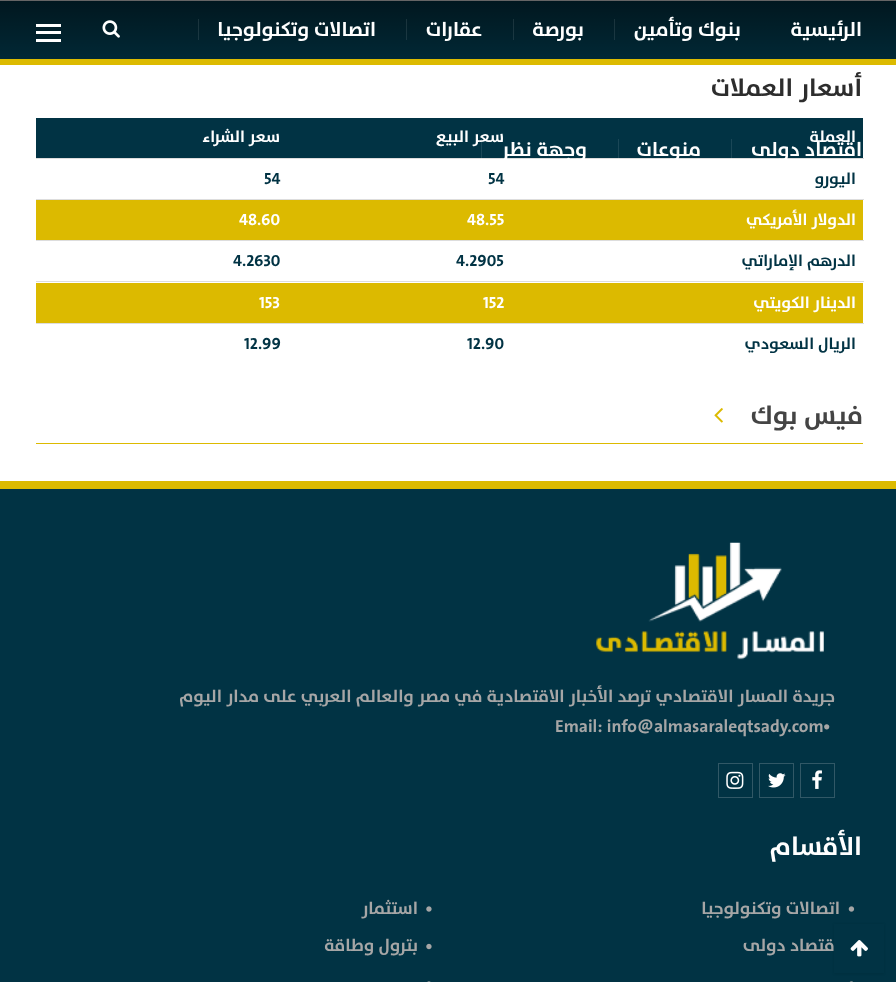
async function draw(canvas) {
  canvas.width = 896;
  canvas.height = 982;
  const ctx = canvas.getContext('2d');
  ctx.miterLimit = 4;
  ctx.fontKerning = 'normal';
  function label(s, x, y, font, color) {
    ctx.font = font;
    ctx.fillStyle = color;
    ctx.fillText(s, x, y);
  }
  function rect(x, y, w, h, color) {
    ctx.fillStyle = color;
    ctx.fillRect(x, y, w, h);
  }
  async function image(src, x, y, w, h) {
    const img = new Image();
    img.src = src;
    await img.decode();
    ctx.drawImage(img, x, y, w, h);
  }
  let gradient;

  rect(0, 0, 896, 982, '#fff');
  rect(0, 1, 896, 58, '#013344');
  rect(0, 0, 896, 1, '#dedede');
  rect(0, 59, 896, 6, '#dcba00');
  gradient = ctx.createLinearGradient(448, 0, 448, 59);
  gradient.addColorStop(0, '#0000008c');
  gradient.addColorStop(1, '#00000038');
  ctx.fillStyle = gradient;
  ctx.fillRect(0, 0, 896, 59);
  ctx.direction = 'rtl';
  label('الرئيسية', 862, 36, 'bold 20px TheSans', '#fff');
  label('بنوك وتأمين', 741, 36, 'bold 20px TheSans', '#fff');
  rect(614, 19, 1, 21, '#ffffff1a');
  label('بورصة', 584, 36, 'bold 20px TheSans', '#fff');
  rect(513, 19, 1, 21, '#ffffff1a');
  label('عقارات', 482, 36, 'bold 20px TheSans', '#fff');
  rect(406, 19, 1, 21, '#ffffff1a');
  label('اتصالات وتكنولوجيا', 376, 36, 'bold 20px TheSans', '#fff');
  rect(198, 19, 1, 21, '#ffffff1a');
  rect(778, 93, 1, 7, '#ffffff1a');
  rect(36, 118, 827, 40, '#013344');
  rect(36, 158, 828, 1, '#ddd');
  label('اقتصاد دولى', 862, 156, 'bold 20px TheSans', '#fff');
  label('منوعات', 701, 156, 'bold 20px TheSans', '#fff');
  label('وجهة نظر', 587, 156, 'bold 20px TheSans', '#fff');
  rect(481, 139, 1, 21, '#ffffff1a');
  await image('assets/img1.png', 102, 20, 18, 18);
  rect(36, 31, 25, 3, '#fff');
  rect(36, 24, 25, 3, '#fff');
  rect(36, 39, 25, 3, '#fff');
  label('أسعار العملات', 862, 96, 'bold 25px TheSans', '#2d2d2d');
  rect(618, 139, 1, 19, '#1a4757');
  rect(731, 139, 1, 19, '#1a4757');
  label('العملة', 856, 142, 'bold 16.25px TheSans', '#fff');
  label('سعر البيع', 504, 142, 'bold 16.25px TheSans', '#fff');
  label('سعر الشراء', 280, 142, 'bold 16.25px TheSans', '#fff');
  rect(618, 158, 1, 1, '#e0e0e0');
  rect(731, 158, 1, 1, '#e0e0e0');
  label('اليورو', 856, 184, 'bold 16.25px TheSans', '#013344');
  ctx.direction = 'ltr';
  label('54', 488, 184, 'bold 16.25px TheSans', '#013344');
  label('54', 264, 184, 'bold 16.25px TheSans', '#013344');
  rect(36, 200, 827, 40, '#dcba00');
  ctx.direction = 'rtl';
  label('الدولار الأمريكي', 856, 225, 'bold 16.25px TheSans', '#fff');
  ctx.direction = 'ltr';
  label('48.55', 467, 225, 'bold 16.25px TheSans', '#fff');
  rect(36, 199, 828, 1, '#ddd');
  label('48.60', 239, 225, 'bold 16.25px TheSans', '#fff');
  ctx.direction = 'rtl';
  label('الدرهم الإماراتي', 856, 266, 'bold 16.25px TheSans', '#013344');
  ctx.direction = 'ltr';
  label('4.2905', 456, 266, 'bold 16.25px TheSans', '#013344');
  rect(36, 240, 828, 1, '#ddd');
  label('4.2630', 233, 266, 'bold 16.25px TheSans', '#013344');
  rect(36, 283, 827, 40, '#dcba00');
  ctx.direction = 'rtl';
  label('الدينار الكويتي', 856, 308, 'bold 16.25px TheSans', '#fff');
  ctx.direction = 'ltr';
  label('152', 483, 308, 'bold 16.25px TheSans', '#fff');
  rect(36, 281, 828, 1, '#ddd');
  label('153', 259, 308, 'bold 16.25px TheSans', '#fff');
  ctx.direction = 'rtl';
  label('الريال السعودي', 856, 349, 'bold 16.25px TheSans', '#013344');
  ctx.direction = 'ltr';
  label('12.90', 467, 349, 'bold 16.25px TheSans', '#013344');
  rect(36, 323, 828, 1, '#ddd');
  label('12.99', 244, 349, 'bold 16.25px TheSans', '#013344');
  ctx.direction = 'rtl';
  label('فيس بوك', 863, 424, 'bold 26.25px TheSans', '#444');
  await image('assets/img2.png', 714, 408, 9, 15);
  rect(36, 443, 827, 1, '#dcba00');
  rect(0, 481, 896, 8, '#dcba00');
  rect(0, 489, 896, 493, '#013344');
  await image('assets/img3.png', 596, 542, 228, 118);
  label('جريدة المسار الاقتصادي ترصد الأخبار الاقتصادية في مصر والعالم العربي على مدار اليوم', 835, 702, 'bold 17.5px TheSans', '#a6a6a6');
  ctx.direction = 'ltr';
  label('•', 823, 732, 'bold 17.5px TheSans', '#a6a6a6');
  label('Email: info@almasaraleqtsady.com', 555, 732, 'bold 17.5px TheSans', '#a6a6a6');
  ctx.strokeStyle = '#315866';
  ctx.strokeRect(800.5, 763.5, 34, 34);
  await image('assets/img4.png', 812, 770, 10, 19);
  ctx.strokeRect(759.5, 763.5, 34, 34);
  await image('assets/img5.png', 768, 773, 18, 15);
  ctx.strokeRect(718.5, 763.5, 34, 34);
  await image('assets/img6.png', 726, 771, 18, 18);
  ctx.direction = 'rtl';
  label('الأقسام', 862, 855, 'bold 26.25px TheSans', '#fff');
  await image('assets/img7.png', 848, 906, 7, 6);
  label('اتصالات وتكنولوجيا', 840, 914, 'bold 17.5px TheSans', '#a6a6a6');
  await image('assets/img8.png', 426, 906, 6, 6);
  label('استثمار', 418, 914, 'bold 17.5px TheSans', '#a6a6a6');
  label('اقتصاد دولى', 840, 951, 'bold 17.5px TheSans', '#a6a6a6');
  await image('assets/img9.png', 426, 943, 6, 7);
  label('بترول وطاقة', 418, 951, 'bold 17.5px TheSans', '#a6a6a6');
  await image('assets/img10.png', 849, 981, 4, 1);
  await image('assets/img11.png', 427, 981, 4, 1);
  ctx.fillStyle = '#00000017';
  ctx.filter = 'blur(1px)';
  ctx.beginPath();
  ctx.rect(834, 924, 50, 50);
  ctx.fill();
  ctx.filter = 'none';
  rect(834, 924, 50, 49, '#013344');
  await image('assets/img12.png', 850, 940, 18, 17);
}

draw(document.querySelector('canvas'));
